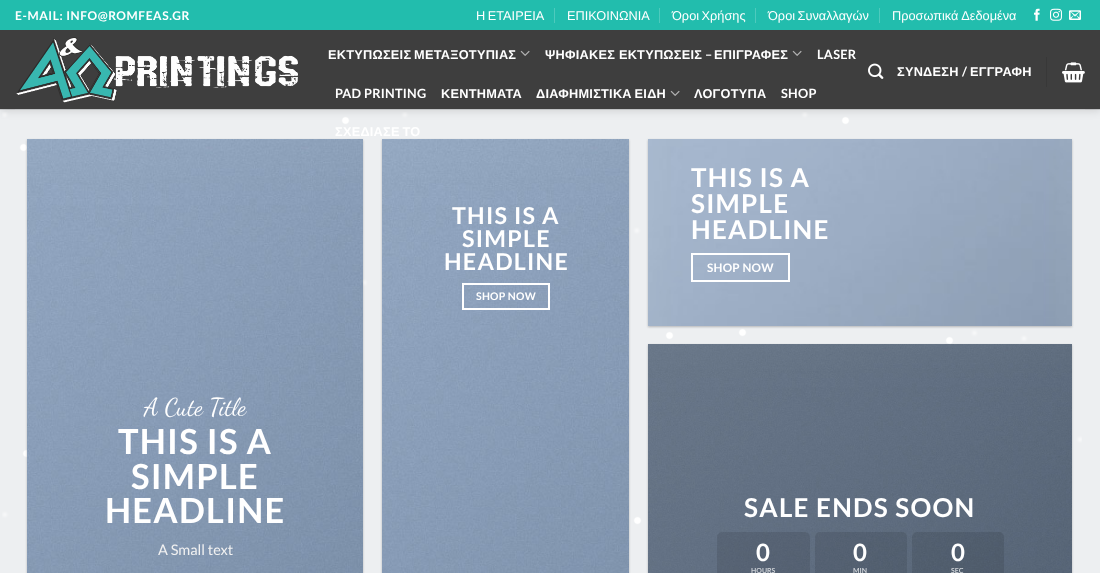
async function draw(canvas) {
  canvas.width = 1100;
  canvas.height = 573;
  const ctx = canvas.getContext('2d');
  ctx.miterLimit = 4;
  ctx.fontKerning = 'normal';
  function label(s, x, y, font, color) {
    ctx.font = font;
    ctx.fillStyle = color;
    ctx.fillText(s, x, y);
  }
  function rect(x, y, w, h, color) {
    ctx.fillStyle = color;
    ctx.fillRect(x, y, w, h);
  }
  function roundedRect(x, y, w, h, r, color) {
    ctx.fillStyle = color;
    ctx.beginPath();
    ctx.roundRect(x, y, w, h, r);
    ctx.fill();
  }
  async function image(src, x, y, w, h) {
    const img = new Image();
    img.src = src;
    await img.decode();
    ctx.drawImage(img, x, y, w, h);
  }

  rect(0, 0, 1100, 573, '#edeff1');
  rect(0, 109, 1100, 1, '#ced0d2');
  await image('assets/img8.png', 2, 112, 1080, 413);
  ctx.fillStyle = '#00000026';
  ctx.filter = 'blur(5px)';
  ctx.beginPath();
  ctx.rect(1, 1, 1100, 109);
  ctx.fill();
  ctx.filter = 'none';
  rect(0, 0, 1100, 30, '#22bdad');
  ctx.letterSpacing = '0.6px';
  label('E-MAIL: INFO@ROMFEAS.GR', 15, 20, 'bold 12px Lato', '#fff');
  ctx.letterSpacing = '0px';
  ctx.wordSpacing = '-1px';
  label('Η ΕΤΑΙΡΕΙΑ', 476, 20, '12.75px Liberation Sans', '#fff');
  rect(554, 8, 1, 15, '#4ecabd');
  ctx.wordSpacing = '0px';
  label('ΕΠΙΚΟΙΝΩΝΙΑ', 567, 20, '12.75px Liberation Sans', '#fff');
  rect(659, 8, 1, 15, '#4ecabd');
  ctx.wordSpacing = '-1px';
  label('Όροι Χρήσης', 672, 20, '12.75px Liberation Sans', '#fff');
  rect(755, 8, 1, 15, '#4ecabd');
  label('Όροι Συναλλαγών', 768, 20, '12.75px Liberation Sans', '#fff');
  rect(879, 8, 1, 15, '#4ecabd');
  ctx.wordSpacing = '0px';
  label('Προσωπικά Δεδομένα', 892, 20, '12.75px Liberation Sans', '#fff');
  await image('assets/img1.png', 1034, 8, 6, 13);
  await image('assets/img2.png', 1050, 8, 12, 13);
  await image('assets/img3.png', 1069, 10, 12, 10);
  rect(0, 30, 1100, 79, '#3e3e3e');
  await image('assets/img4.png', 16, 37, 282, 66);
  ctx.letterSpacing = '0.25px';
  ctx.wordSpacing = '-1px';
  label('ΕΚΤΥΠΩΣΕΙΣ ΜΕΤΑΞΟΤΥΠΙΑΣ', 328, 59, 'bold 12.75px Liberation Sans', '#fff');
  await image('assets/img5.png', 520, 50, 10, 6);
  ctx.wordSpacing = '0px';
  label('ΨΗΦΙΑΚΕΣ ΕΚΤΥΠΩΣΕΙΣ', 545, 59, 'bold 12.75px Liberation Sans', '#fff');
  label('–', 705, 59, 'bold 12.75px Lato', '#fff');
  label('ΕΠΙΓΡΑΦΕΣ', 714, 59, 'bold 12.75px Liberation Sans', '#fff');
  await image('assets/img5.png', 792, 50, 10, 6);
  label('LASER', 817, 59, 'bold 12.75px Lato', '#fff');
  label('PAD PRINTING', 335, 98, 'bold 12.75px Lato', '#fff');
  label('ΚΕΝΤΗΜΑΤΑ', 441, 98, 'bold 12.75px Liberation Sans', '#fff');
  ctx.wordSpacing = '-1px';
  label('ΔΙΑΦΗΜΙΣΤΙΚΑ ΕΙΔΗ', 536, 98, 'bold 12.75px Liberation Sans', '#fff');
  await image('assets/img5.png', 670, 90, 10, 6);
  ctx.wordSpacing = '0px';
  label('ΛΟΓΟΤΥΠΑ', 694, 98, 'bold 12.75px Liberation Sans', '#fff');
  label('SHOP', 781, 98, 'bold 12.75px Lato', '#fff');
  ctx.fillStyle = '#0000003d';
  ctx.filter = 'blur(1px)';
  ctx.beginPath();
  ctx.rect(382, 140, 247, 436);
  ctx.fill();
  ctx.filter = 'none';
  ctx.filter = 'blur(1px)';
  ctx.beginPath();
  ctx.rect(27, 140, 336, 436);
  ctx.fill();
  ctx.filter = 'none';
  ctx.wordSpacing = '-1px';
  label('ΣΧΕΔΙΑΣΕ ΤΟ', 335, 136, 'bold 12.75px Liberation Sans', '#fff');
  await image('assets/img6.png', 868, 63, 16, 16);
  ctx.wordSpacing = '0px';
  label('ΣΥΝΔΕΣΗ', 897, 76, 'bold 12.75px Liberation Sans', '#fff');
  label('/', 962, 76, 'bold 12.75px Lato', '#fff');
  label('ΕΓΓΡΑΦΗ', 970, 76, 'bold 12.75px Liberation Sans', '#fff');
  rect(1046, 57, 1, 30, '#383838');
  await image('assets/img7.png', 1062, 62, 23, 21);
  rect(15, 109, 1070, 1, '#c1c3c5');
  await image('assets/img9.png', 382, 139, 247, 434);
  ctx.letterSpacing = '1.25px';
  label('THIS IS A', 452, 224, 'bold 23.25px Lato', '#fff');
  label('SIMPLE', 462, 247, 'bold 23.25px Lato', '#fff');
  label('HEADLINE', 444, 270, 'bold 23.25px Lato', '#fff');
  ctx.strokeStyle = '#fff';
  ctx.lineWidth = 2;
  ctx.strokeRect(463, 284, 86, 25);
  ctx.letterSpacing = '0.25px';
  label('SHOP NOW', 476, 300, 'bold 10.5px Lato', '#fff');
  ctx.fillStyle = '#0000003d';
  ctx.filter = 'blur(1px)';
  ctx.beginPath();
  ctx.rect(648, 140, 424, 187);
  ctx.fill();
  ctx.filter = 'none';
  await image('assets/img10.png', 648, 139, 424, 187);
  ctx.letterSpacing = '1.25px';
  label('THIS IS A', 691, 187, 'bold 26px Lato', '#fff');
  label('SIMPLE', 691, 213, 'bold 26px Lato', '#fff');
  label('HEADLINE', 691, 239, 'bold 26px Lato', '#fff');
  ctx.strokeRect(692, 254, 97, 27);
  ctx.letterSpacing = '0.25px';
  label('SHOP NOW', 707, 272, 'bold 11.75px Lato', '#fff');
  await image('assets/img11.png', 27, 139, 336, 434);
  ctx.letterSpacing = '0px';
  label('A Cute Title', 144, 415, '24.5px Dancing Script', '#fff');
  ctx.letterSpacing = '1.25px';
  label('THIS IS A', 118, 454, 'bold 34.5px Lato', '#fff');
  label('SIMPLE', 131, 489, 'bold 34.5px Lato', '#fff');
  label('HEADLINE', 105, 523, 'bold 34.5px Lato', '#fff');
  ctx.letterSpacing = '0px';
  label('A Small text', 158, 555, '14.5px Lato', '#f1f1f1');
  ctx.fillStyle = '#0000003d';
  ctx.filter = 'blur(1px)';
  ctx.beginPath();
  ctx.rect(648, 345, 424, 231);
  ctx.fill();
  ctx.filter = 'none';
  await image('assets/img12.png', 648, 344, 424, 229);
  ctx.letterSpacing = '1.25px';
  label('SALE ENDS SOON', 744, 517, 'bold 26px Lato', '#fff');
  roundedRect(717, 532, 93, 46, 5, '#0000001a');
  ctx.letterSpacing = '0px';
  label('0', 756, 561, 'bold 24px Lato', '#fff');
  label('HOURS', 751, 573, 'bold 7px Lato', '#ccd0d5');
  roundedRect(815, 532, 92, 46, 5, '#0000001a');
  label('0', 853, 561, 'bold 24px Lato', '#fff');
  label('MIN', 853, 573, 'bold 7px Lato', '#ccd0d5');
  roundedRect(912, 532, 92, 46, 5, '#0000001a');
  label('0', 951, 561, 'bold 24px Lato', '#fff');
  label('SEC', 951, 573, 'bold 7px Lato', '#ccd0d5');
}

draw(document.querySelector('canvas'));
